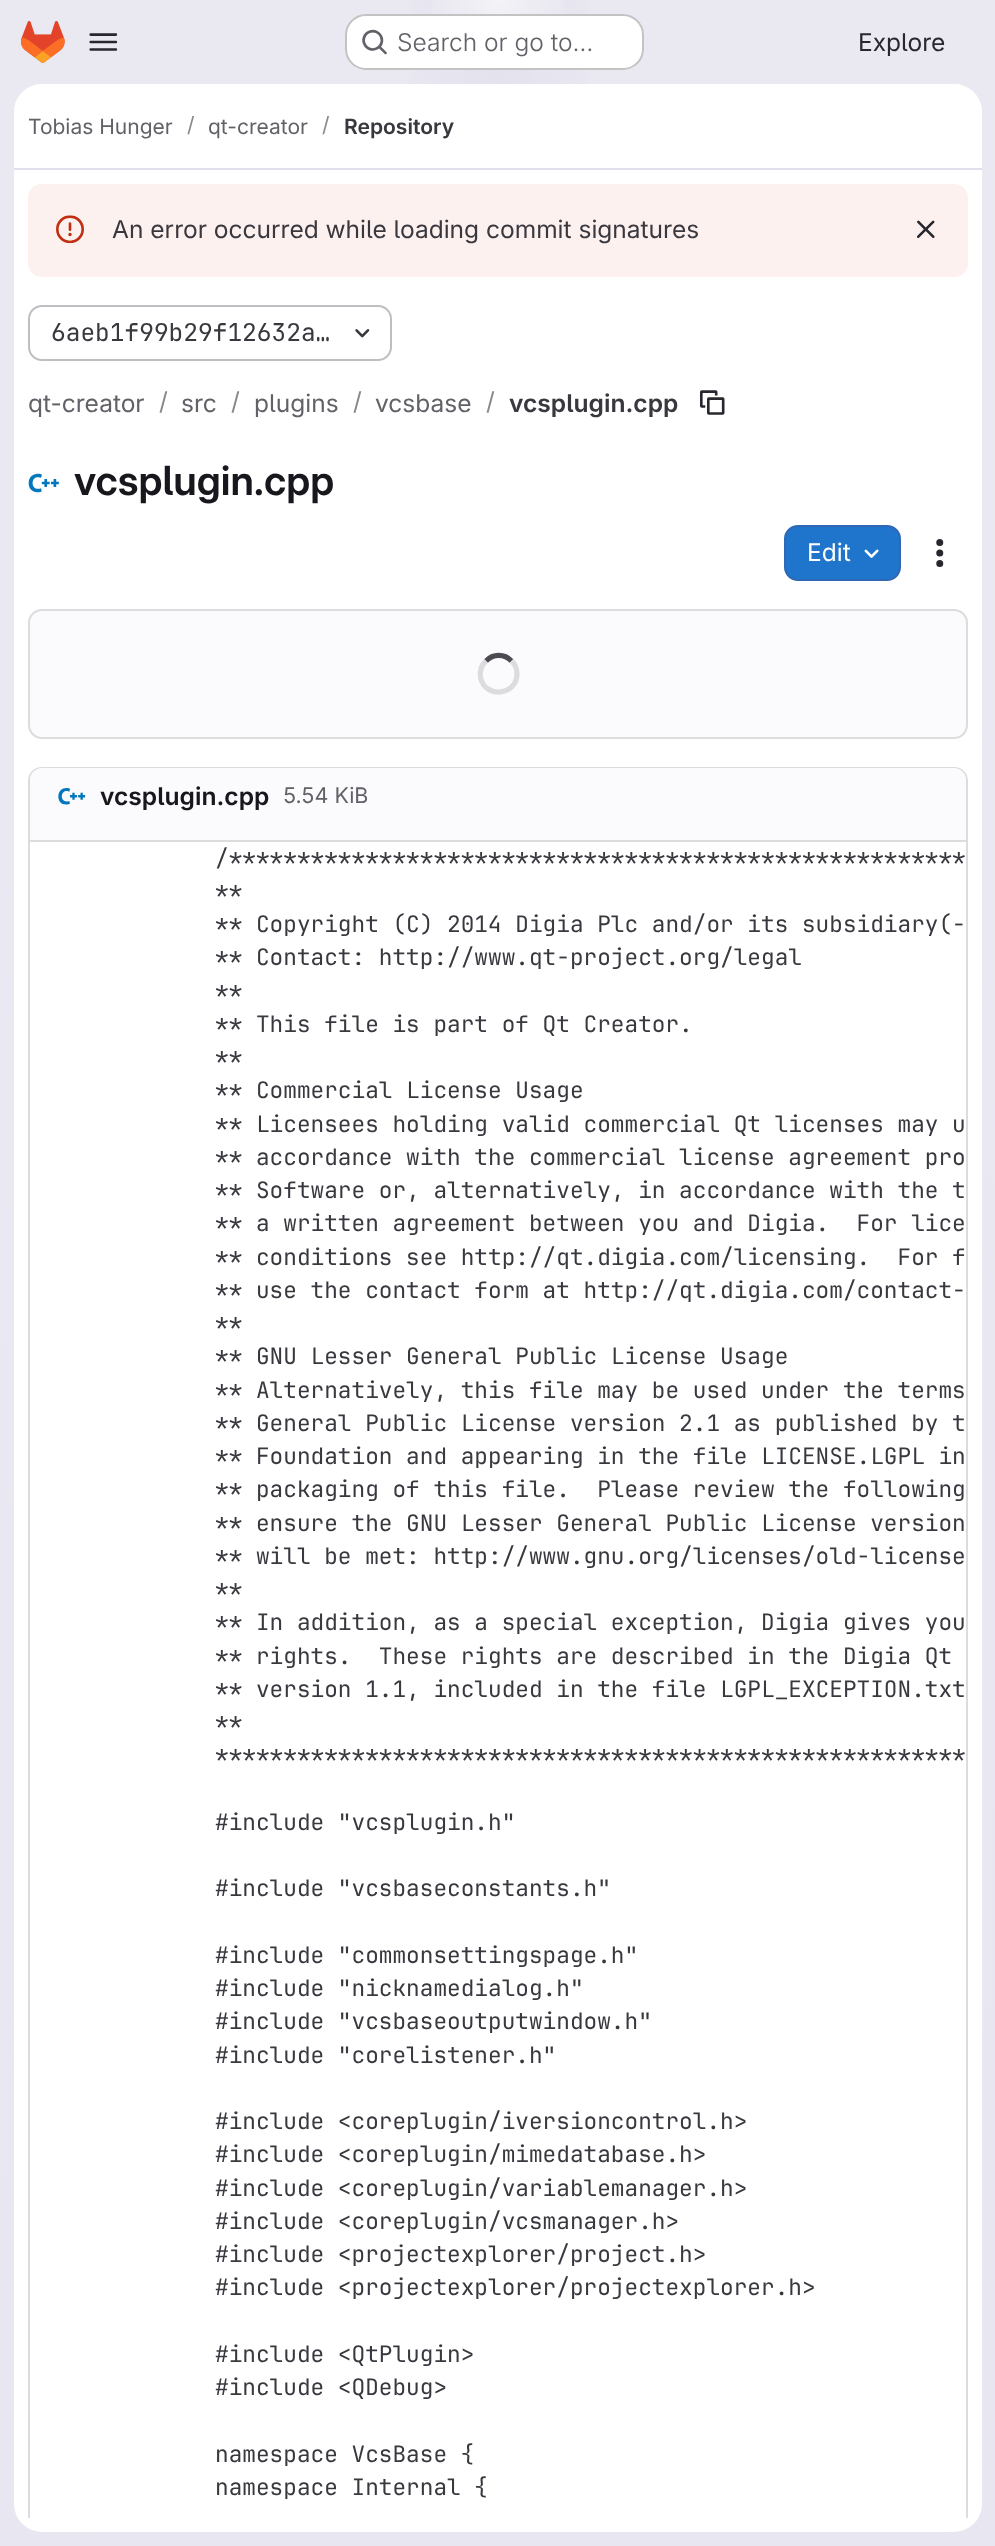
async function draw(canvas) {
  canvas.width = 995;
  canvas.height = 2546;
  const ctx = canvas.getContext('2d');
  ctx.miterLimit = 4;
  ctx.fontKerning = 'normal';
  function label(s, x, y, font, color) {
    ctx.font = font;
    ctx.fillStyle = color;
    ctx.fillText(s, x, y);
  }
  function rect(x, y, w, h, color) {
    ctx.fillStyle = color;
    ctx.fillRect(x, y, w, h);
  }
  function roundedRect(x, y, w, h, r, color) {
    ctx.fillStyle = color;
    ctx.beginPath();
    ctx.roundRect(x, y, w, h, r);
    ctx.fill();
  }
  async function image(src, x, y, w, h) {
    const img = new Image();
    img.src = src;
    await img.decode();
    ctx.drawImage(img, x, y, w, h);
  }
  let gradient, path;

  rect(0, 0, 995, 2546, '#fff');
  gradient = ctx.createLinearGradient(731, 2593, 265, -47);
  gradient.addColorStop(0, '#e8e6f0');
  gradient.addColorStop(0.7, '#eae9f2');
  ctx.fillStyle = gradient;
  ctx.fillRect(0, 0, 995, 2546);
  gradient = ctx.createRadialGradient(498, 0, 0, 498, 0, 498);
  gradient.addColorStop(0, '#e4e2ed');
  gradient.addColorStop(0.25, '#e4e2ed00');
  ctx.fillStyle = gradient;
  ctx.beginPath();
  ctx.rect(409, 0, 178, 84);
  ctx.save();
  ctx.clip();
  ctx.scale(1, 2546 / 498);
  ctx.fillRect(0, 0, 995, 498);
  ctx.restore();
  gradient = ctx.createRadialGradient(498, 0, 0, 498, 0, 498);
  gradient.addColorStop(0, '#e4e2ec');
  gradient.addColorStop(0.18, '#e4e2ec00');
  ctx.fillStyle = gradient;
  ctx.beginPath();
  ctx.rect(463, 4, 70, 78);
  ctx.save();
  ctx.clip();
  ctx.scale(1, 2546 / 498);
  ctx.fillRect(0, 0, 995, 498);
  ctx.restore();
  gradient = ctx.createRadialGradient(498, 0, 0, 498, 0, 2594);
  gradient.addColorStop(0, '#ffffff99');
  gradient.addColorStop(0.03, '#ffffff00');
  ctx.fillStyle = gradient;
  ctx.fillRect(432, 0, 132, 14);
  await image('assets/img1.png', 21, 21, 44, 42);
  await image('assets/img2.png', 89, 33, 29, 18);
  roundedRect(345, 14, 299, 56, 21, '#fff');
  ctx.beginPath();
  ctx.roundRect(346, 15, 297, 54, 20);
  ctx.strokeStyle = '#0505063d';
  ctx.lineWidth = 2;
  ctx.stroke();
  await image('assets/img3.png', 362, 29, 25, 26);
  label('Search or go to…', 397, 51, '300 24.5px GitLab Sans', '#626168');
  label('Explore', 858, 51, '24.5px GitLab Sans', '#28272d');
  roundedRect(14, 84, 968, 2448, 28, '#fff');
  ctx.beginPath();
  ctx.roundRect(14, 84, 968, 86, [28, 28, 0, 0]);
  ctx.fill();
  rect(14, 168, 968, 2, '#e1dfec');
  label('Tobias Hunger', 28, 134, '21px GitLab Sans', '#626168');
  label('/', 187, 132, '21px GitLab Sans', '#89888d');
  label('qt-creator', 208, 134, '21px GitLab Sans', '#626168');
  label('/', 322, 132, '21px GitLab Sans', '#89888d');
  label('Repository', 344, 134, '600 21px "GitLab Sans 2"', '#3a383f');
  roundedRect(28, 184, 940, 93, 14, '#fcf1ef');
  await image('assets/img4.png', 56, 215, 28, 29);
  label('An error occurred while loading commit signatures', 112, 238, '24.5px GitLab Sans', '#3a383f');
  await image('assets/img5.png', 917, 220, 18, 18);
  ctx.beginPath();
  ctx.roundRect(29, 306, 362, 54, 13);
  ctx.strokeStyle = '#bfbfc3';
  ctx.stroke();
  label('6aeb1f99b29f12632a…', 51, 341, '24.5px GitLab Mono', '#3a383f');
  await image('assets/img6.png', 355, 329, 15, 9);
  label('qt-creator', 28, 412, '24.5px GitLab Sans', '#626168');
  label('/', 159, 410, '24.5px GitLab Sans', '#89888d');
  label('src', 181, 412, '24.5px GitLab Sans', '#626168');
  label('/', 231, 410, '24.5px GitLab Sans', '#89888d');
  label('plugins', 254, 412, '24.5px GitLab Sans', '#626168');
  label('/', 353, 410, '24.5px GitLab Sans', '#89888d');
  label('vcsbase', 375, 412, '24.5px GitLab Sans', '#626168');
  label('/', 486, 410, '24.5px GitLab Sans', '#89888d');
  label('vcsplugin.cpp', 509, 412, '600 24.5px "GitLab Sans 2"', '#3a383f');
  await image('assets/img7.png', 700, 390, 25, 25);
  await image('assets/img8.png', 28, 473, 31, 20);
  label('vcsplugin.cpp', 74, 495, '600 40.25px GitLab Sans', '#18171d');
  ctx.fillStyle = '#1f75cb';
  ctx.beginPath();
  ctx.roundRect(785, 526, 115, 54, 13);
  ctx.fill();
  ctx.strokeStyle = '#2f68b4';
  ctx.stroke();
  label('Edit', 807, 561, '24.5px GitLab Sans', '#fff');
  await image('assets/img9.png', 864, 549, 15, 9);
  await image('assets/img10.png', 936, 539, 8, 28);
  ctx.fillStyle = '#fbfafd';
  ctx.beginPath();
  ctx.roundRect(29, 610, 938, 128, 13);
  ctx.fill();
  ctx.strokeStyle = '#dcdcde';
  ctx.stroke();
  path = new Path2D('M486 661C493 653.5 504.5 653.5 511.5 661');
  ctx.strokeStyle = '#4c4b51';
  ctx.lineWidth = 5.2;
  ctx.stroke(path);
  path = new Path2D('M511.5 661C515 664 517 669 517 674C517 695.5 485 699 480.5 677.5C479.5 671.5 481.5 665 486 661');
  ctx.strokeStyle = '#dcdcde';
  ctx.stroke(path);
  ctx.save();
  ctx.beginPath();
  ctx.rect(14, 170, 968, 2348);
  ctx.clip();
  ctx.fillStyle = '#dcdcde';
  path = new Path2D('M42 767C34 767 28 773 28 781V2528L30 2529V781C30 774 35 769 42 769H954C961 769 966 774 966 781V2529L968 2528V781C968 773 962 767 954 767Z');
  ctx.fill(path);
  ctx.restore();
  ctx.beginPath();
  ctx.roundRect(30, 768, 936, 74, [12, 12, 0, 0]);
  ctx.fill();
  rect(30, 840, 936, 2, '#dcdcde');
  await image('assets/img11.png', 58, 788, 28, 17);
  label('vcsplugin.cpp', 100, 805, '600 24.5px "GitLab Sans 2"', '#18171d');
  label('5.54 KiB', 283, 803, '21.5px GitLab Sans', '#626168');
  label('/******************************************************', 215, 866, '22.75px GitLab Mono', '#3a383f');
  label('**', 215, 899, '22.75px GitLab Mono', '#3a383f');
  label('** Copyright (C) 2014 Digia Plc and/or its subsidiary(-', 215, 932, '22.75px GitLab Mono', '#3a383f');
  label('** Contact: http://www.qt-project.org/legal', 215, 965, '22.75px GitLab Mono', '#3a383f');
  label('**', 215, 999, '22.75px GitLab Mono', '#3a383f');
  label('** This file is part of Qt Creator.', 215, 1032, '22.75px GitLab Mono', '#3a383f');
  label('**', 215, 1065, '22.75px GitLab Mono', '#3a383f');
  label('** Commercial License Usage', 215, 1098, '22.75px GitLab Mono', '#3a383f');
  label('** Licensees holding valid commercial Qt licenses may u', 215, 1132, '22.75px GitLab Mono', '#3a383f');
  label('** accordance with the commercial license agreement pro', 215, 1165, '22.75px GitLab Mono', '#3a383f');
  label('** Software or, alternatively, in accordance with the t', 215, 1198, '22.75px GitLab Mono', '#3a383f');
  label('** a written agreement between you and Digia.  For lice', 215, 1231, '22.75px GitLab Mono', '#3a383f');
  label('** conditions see http://qt.digia.com/licensing.  For f', 215, 1265, '22.75px GitLab Mono', '#3a383f');
  label('** use the contact form at http://qt.digia.com/contact-', 215, 1298, '22.75px GitLab Mono', '#3a383f');
  label('**', 215, 1331, '22.75px GitLab Mono', '#3a383f');
  label('** GNU Lesser General Public License Usage', 215, 1364, '22.75px GitLab Mono', '#3a383f');
  label('** Alternatively, this file may be used under the terms', 215, 1398, '22.75px GitLab Mono', '#3a383f');
  label('** General Public License version 2.1 as published by t', 215, 1431, '22.75px GitLab Mono', '#3a383f');
  label('** Foundation and appearing in the file LICENSE.LGPL in', 215, 1464, '22.75px GitLab Mono', '#3a383f');
  label('** packaging of this file.  Please review the following', 215, 1497, '22.75px GitLab Mono', '#3a383f');
  label('** ensure the GNU Lesser General Public License version', 215, 1531, '22.75px GitLab Mono', '#3a383f');
  label('** will be met: http://www.gnu.org/licenses/old-license', 215, 1564, '22.75px GitLab Mono', '#3a383f');
  label('**', 215, 1597, '22.75px GitLab Mono', '#3a383f');
  label('** In addition, as a special exception, Digia gives you', 215, 1630, '22.75px GitLab Mono', '#3a383f');
  label('** rights.  These rights are described in the Digia Qt', 215, 1664, '22.75px GitLab Mono', '#3a383f');
  label('** version 1.1, included in the file LGPL_EXCEPTION.txt', 215, 1697, '22.75px GitLab Mono', '#3a383f');
  label('**', 215, 1730, '22.75px GitLab Mono', '#3a383f');
  label('*******************************************************', 215, 1763, '22.75px GitLab Mono', '#3a383f');
  label('#include "vcsplugin.h"', 215, 1830, '22.75px GitLab Mono', '#3a383f');
  label('#include "vcsbaseconstants.h"', 215, 1896, '22.75px GitLab Mono', '#3a383f');
  label('#include "commonsettingspage.h"', 215, 1963, '22.75px GitLab Mono', '#3a383f');
  label('#include "nicknamedialog.h"', 215, 1996, '22.75px GitLab Mono', '#3a383f');
  label('#include "vcsbaseoutputwindow.h"', 215, 2029, '22.75px GitLab Mono', '#3a383f');
  label('#include "corelistener.h"', 215, 2063, '22.75px GitLab Mono', '#3a383f');
  label('#include <coreplugin/iversioncontrol.h>', 215, 2129, '22.75px GitLab Mono', '#3a383f');
  label('#include <coreplugin/mimedatabase.h>', 215, 2162, '22.75px GitLab Mono', '#3a383f');
  label('#include <coreplugin/variablemanager.h>', 215, 2196, '22.75px GitLab Mono', '#3a383f');
  label('#include <coreplugin/vcsmanager.h>', 215, 2229, '22.75px GitLab Mono', '#3a383f');
  label('#include <projectexplorer/project.h>', 215, 2262, '22.75px GitLab Mono', '#3a383f');
  label('#include <projectexplorer/projectexplorer.h>', 215, 2295, '22.75px GitLab Mono', '#3a383f');
  label('#include <QtPlugin>', 215, 2362, '22.75px GitLab Mono', '#3a383f');
  label('#include <QDebug>', 215, 2395, '22.75px GitLab Mono', '#3a383f');
  label('namespace VcsBase {', 215, 2462, '22.75px GitLab Mono', '#3a383f');
  label('namespace Internal {', 215, 2495, '22.75px GitLab Mono', '#3a383f');
}

draw(document.querySelector('canvas'));
